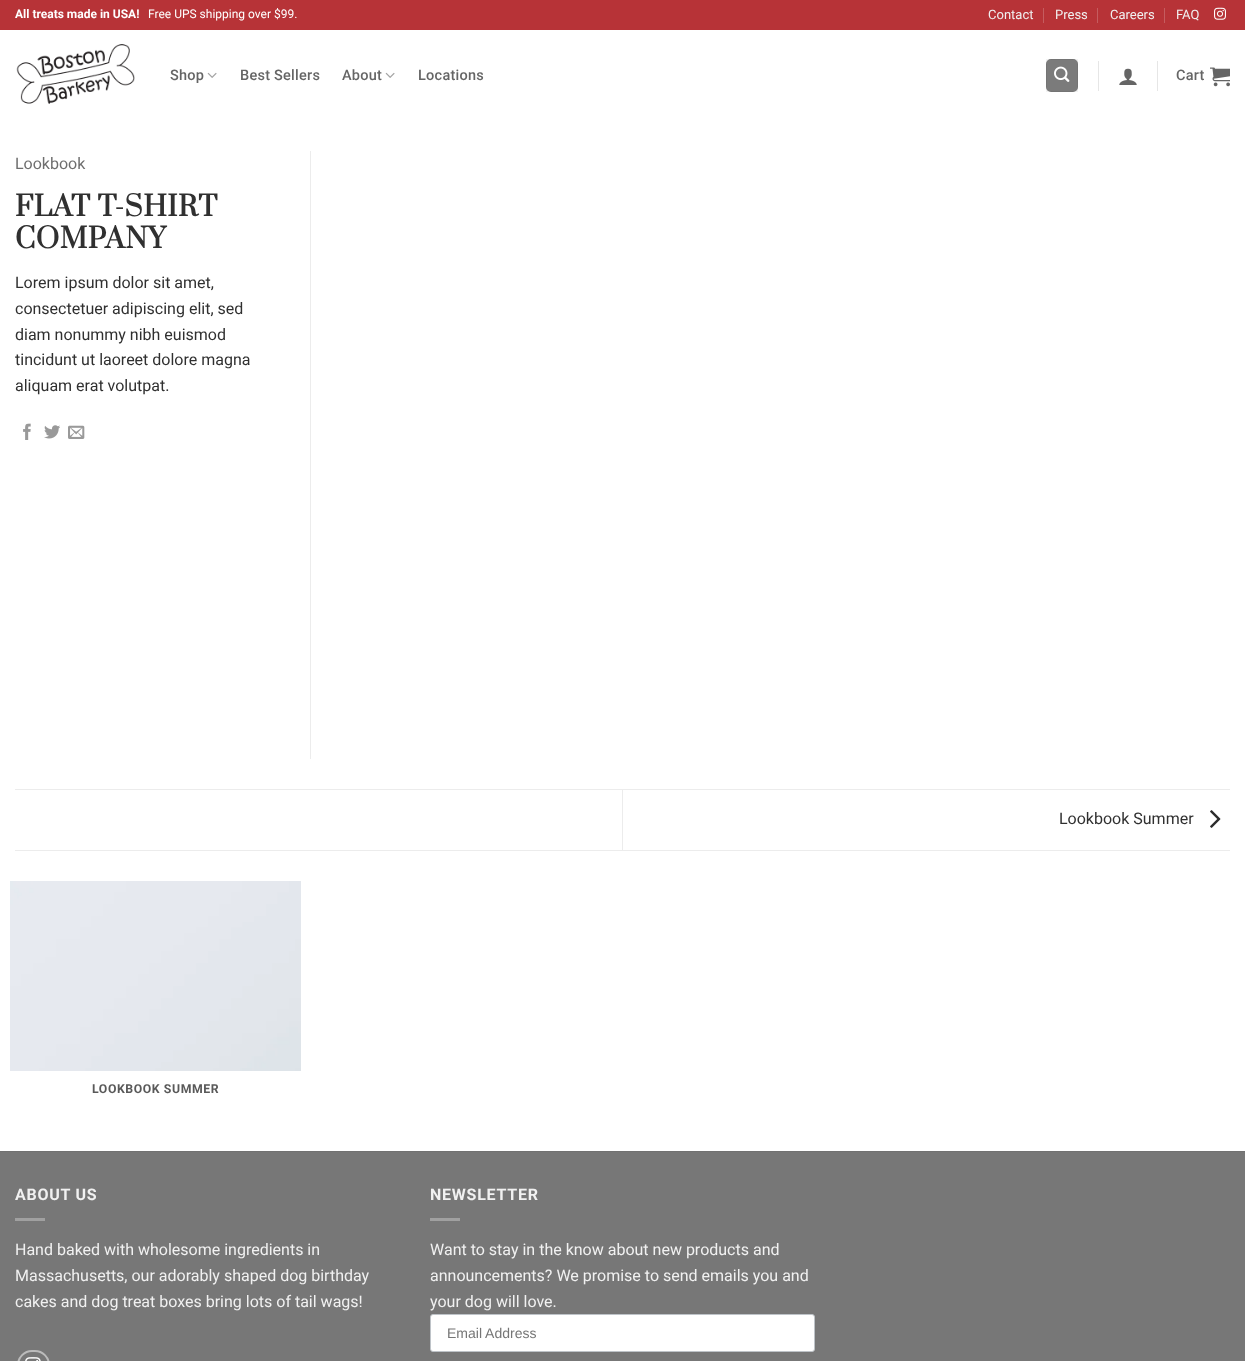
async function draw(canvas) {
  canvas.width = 1245;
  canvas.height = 1361;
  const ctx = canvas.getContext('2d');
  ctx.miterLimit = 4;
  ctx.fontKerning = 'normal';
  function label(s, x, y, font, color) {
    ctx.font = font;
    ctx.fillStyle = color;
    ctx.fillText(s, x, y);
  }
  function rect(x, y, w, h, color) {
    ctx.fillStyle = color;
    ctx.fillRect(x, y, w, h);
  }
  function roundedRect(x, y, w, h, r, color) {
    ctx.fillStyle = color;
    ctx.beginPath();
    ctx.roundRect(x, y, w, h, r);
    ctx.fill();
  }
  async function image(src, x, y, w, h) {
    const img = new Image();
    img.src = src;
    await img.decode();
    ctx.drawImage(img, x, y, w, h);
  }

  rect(0, 0, 1245, 1361, '#fff');
  rect(0, 0, 1245, 30, '#b73337');
  label('All treats made in USA!', 15, 18, 'bold 12px Roboto', '#fff');
  label('Free UPS shipping over $99.', 148, 18, '12px Roboto', '#fff');
  label('Contact', 988, 19, '13px Roboto', '#f1f1f1');
  rect(1043, 8, 1, 15, '#c55c5f');
  label('Press', 1055, 19, '13px Roboto', '#f1f1f1');
  rect(1097, 8, 1, 15, '#c55c5f');
  label('Careers', 1110, 19, '13px Roboto', '#f1f1f1');
  rect(1164, 8, 1, 15, '#c55c5f');
  label('FAQ', 1176, 19, '13px Roboto', '#f1f1f1');
  await image('assets/img1.png', 1214, 7, 12, 13);
  await image('assets/img2.png', 16, 44, 119, 60);
  ctx.letterSpacing = '0.25px';
  label('Shop', 170, 80, '500 14.5px Roboto', '#656565');
  await image('assets/img3.png', 207, 72, 10, 6);
  label('Best Sellers', 240, 80, '500 14.5px Roboto', '#656565');
  label('About', 342, 80, '500 14.5px Roboto', '#656565');
  await image('assets/img3.png', 385, 72, 10, 6);
  label('Locations', 418, 80, '500 14.5px Roboto', '#656565');
  roundedRect(1046, 59, 32, 33, 5, '#7b7b7b');
  ctx.strokeStyle = '#0000000d';
  ctx.strokeRect(1046.5, 59.5, 31, 32);
  await image('assets/img4.png', 1054, 66, 16, 16);
  rect(1098, 61, 1, 30, '#e6e6e6');
  await image('assets/img5.png', 1119, 68, 18, 17);
  rect(1157, 61, 1, 30, '#e6e6e6');
  label('Cart', 1176, 80, '500 14.5px Roboto', '#656565');
  await image('assets/img6.png', 1210, 67, 20, 20);
  rect(310, 151, 1, 608, '#ececec');
  ctx.letterSpacing = '0px';
  label('Lookbook', 15, 169, '16px Roboto', '#6e6e6e');
  ctx.letterSpacing = '0.5px';
  label('FLAT T-SHIRT', 15, 216, 'bold 27.25px Prata', '#303030');
  label('COMPANY', 15, 248, 'bold 27.25px Prata', '#303030');
  ctx.letterSpacing = '0px';
  label('Lorem ipsum dolor sit amet,', 15, 288, '16px Roboto', '#303030');
  label('consectetuer adipiscing elit, sed', 15, 314, '16px Roboto', '#303030');
  label('diam nonummy nibh euismod', 15, 340, '16px Roboto', '#303030');
  label('tincidunt ut laoreet dolore magna', 15, 365, '16px Roboto', '#303030');
  label('aliquam erat volutpat.', 15, 391, '16px Roboto', '#303030');
  await image('assets/img7.png', 23, 423, 8, 17);
  await image('assets/img8.png', 44, 425, 16, 14);
  await image('assets/img9.png', 68, 425, 17, 14);
  rect(15, 789, 1215, 1, '#ececec');
  rect(15, 850, 1215, 1, '#ececec');
  rect(622, 790, 1, 60, '#ececec');
  label('Lookbook Summer', 1059, 824, '16px Roboto', '#303030');
  await image('assets/img10.png', 1210, 810, 11, 18);
  await image('assets/img11.png', 10, 881, 291, 190);
  ctx.letterSpacing = '0.6px';
  label('LOOKBOOK SUMMER', 92, 1093, 'bold 12.25px Roboto', '#595959');
  rect(0, 1152, 1245, 209, '#777');
  rect(0, 1151, 1245, 1, '#717171');
  ctx.letterSpacing = '0.75px';
  label('ABOUT US', 15, 1200, 'bold 16px Roboto', '#f1f1f1');
  rect(15, 1218, 30, 3, '#a0a0a0');
  ctx.letterSpacing = '0px';
  label('Hand baked with wholesome ingredients in', 15, 1255, '16px Roboto', '#f1f1f1');
  label('Massachusetts, our adorably shaped dog birthday', 15, 1281, '16px Roboto', '#f1f1f1');
  label('cakes and dog treat boxes bring lots of tail wags!', 15, 1307, '16px Roboto', '#f1f1f1');
  ctx.beginPath();
  ctx.roundRect(18, 1351, 31, 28, 15.5);
  ctx.strokeStyle = '#bbb';
  ctx.lineWidth = 2;
  ctx.stroke();
  await image('assets/img12.png', 25, 1357, 16, 4);
  ctx.letterSpacing = '0.75px';
  label('NEWSLETTER', 430, 1200, 'bold 16px Roboto', '#f1f1f1');
  rect(430, 1218, 30, 3, '#a0a0a0');
  ctx.letterSpacing = '0px';
  label('Want to stay in the know about new products and', 430, 1255, '16px Roboto', '#f1f1f1');
  label('announcements? We promise to send emails you and', 430, 1281, '16px Roboto', '#f1f1f1');
  label('your dog will love.', 430, 1307, '16px Roboto', '#f1f1f1');
  ctx.fillStyle = '#fff';
  ctx.beginPath();
  ctx.roundRect(430.5, 1314.5, 384, 37, 2.5);
  ctx.fill();
  ctx.strokeStyle = '#bec3c8';
  ctx.lineWidth = 1;
  ctx.stroke();
  label('Email Address', 447, 1338, '14px Liberation Sans', '#757575');
}

draw(document.querySelector('canvas'));
